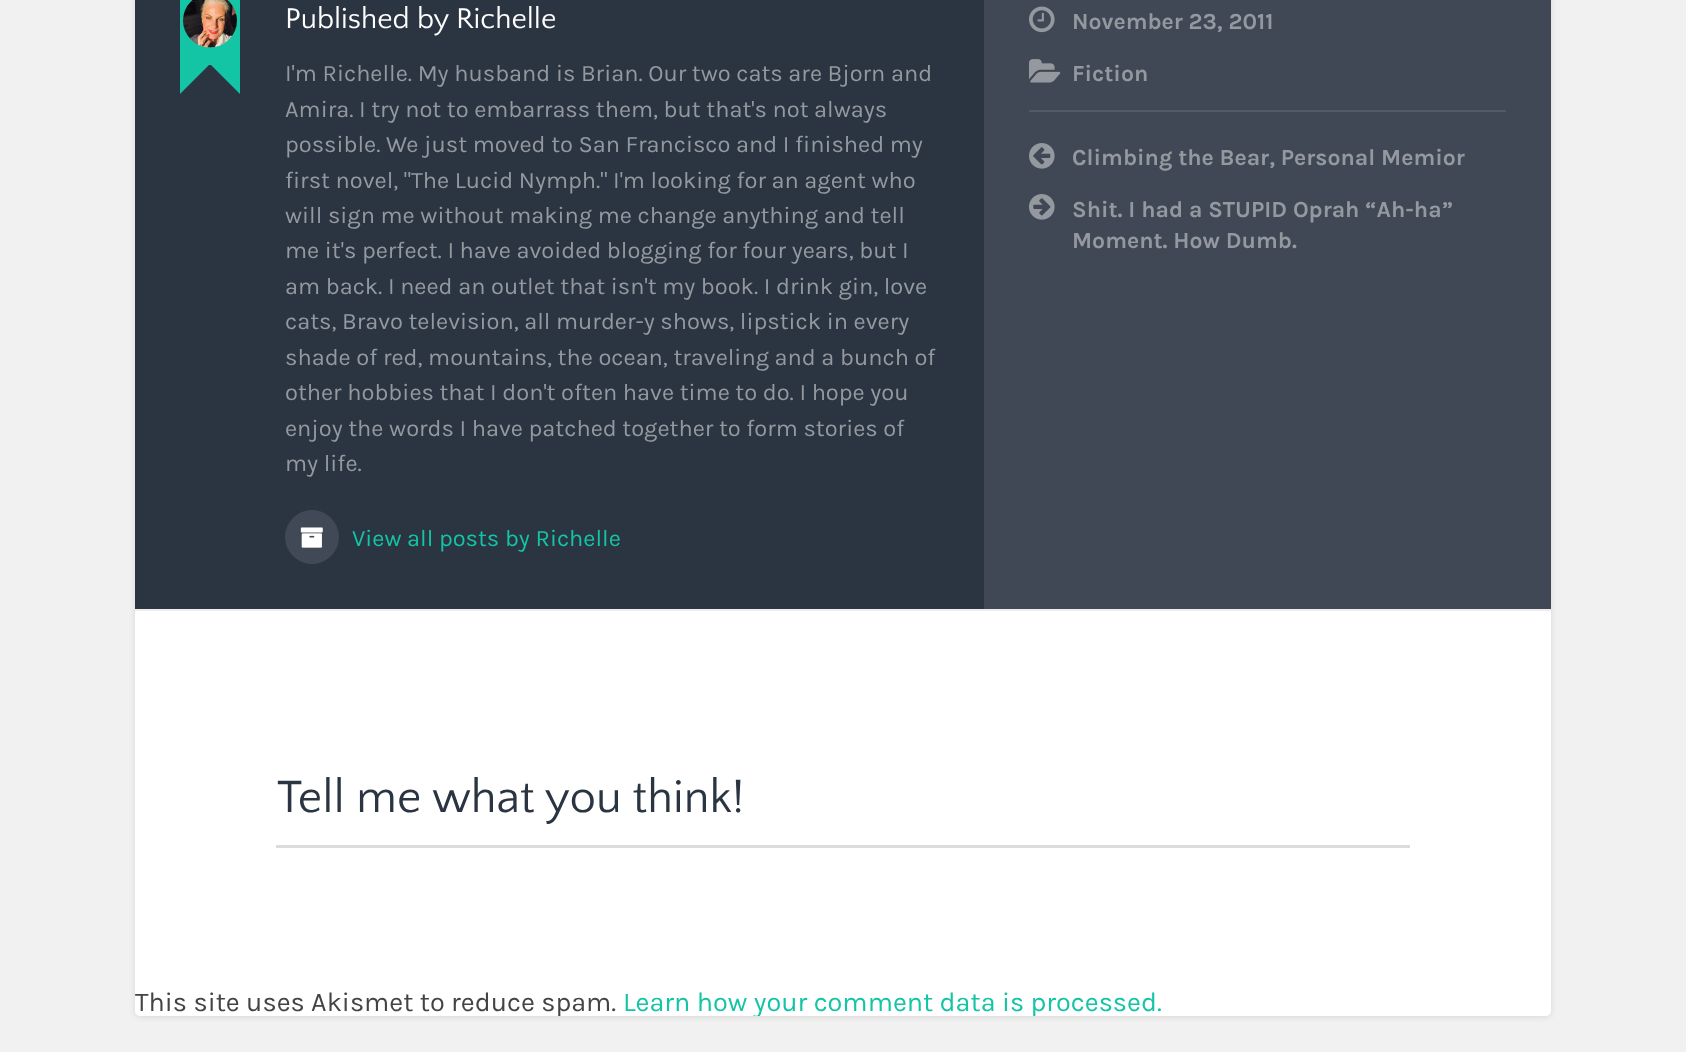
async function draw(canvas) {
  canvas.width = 1686;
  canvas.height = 1052;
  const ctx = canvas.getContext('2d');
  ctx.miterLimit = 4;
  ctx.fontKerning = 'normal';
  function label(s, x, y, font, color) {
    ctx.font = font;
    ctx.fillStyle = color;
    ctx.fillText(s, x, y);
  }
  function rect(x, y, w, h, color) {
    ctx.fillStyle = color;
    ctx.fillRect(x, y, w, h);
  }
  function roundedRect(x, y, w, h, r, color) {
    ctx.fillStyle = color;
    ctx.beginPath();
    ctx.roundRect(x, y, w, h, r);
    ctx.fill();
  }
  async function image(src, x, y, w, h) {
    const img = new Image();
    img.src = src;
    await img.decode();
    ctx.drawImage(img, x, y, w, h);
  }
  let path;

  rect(0, 0, 1686, 1052, '#f1f1f1');
  ctx.fillStyle = '#0000001a';
  ctx.filter = 'blur(3px)';
  ctx.beginPath();
  ctx.roundRect(135, -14, 1416, 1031, 5);
  ctx.fill();
  ctx.filter = 'none';
  roundedRect(135, -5, 1416, 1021, 5, '#fff');
  rect(135, 0, 849, 609, '#2b3542');
  ctx.fillStyle = '#13c4a5';
  path = new Path2D('M240 34V94L210 64ZM180 94V34L210 64Z');
  ctx.fill(path);
  rect(180, 0, 60, 65, '#13c4a5');
  await image('assets/img1.png', 183, 0, 54, 48);
  label('Published by Richelle', 285, 28, '29.75px Quattrocento Sans', '#fff');
  label('I\'m Richelle. My husband is Brian. Our two cats are Bjorn and', 285, 81, '23.6px Karla', '#9499a0');
  label('Amira. I try not to embarrass them, but that\'s not always', 285, 117, '23.6px Karla', '#9499a0');
  label('possible. We just moved to San Francisco and I finished my', 285, 152, '23.6px Karla', '#9499a0');
  label('first novel, "The Lucid Nymph." I\'m looking for an agent who', 285, 188, '23.6px Karla', '#9499a0');
  label('will sign me without making me change anything and tell', 285, 223, '23.6px Karla', '#9499a0');
  label('me it\'s perfect. I have avoided blogging for four years, but I', 285, 258, '23.6px Karla', '#9499a0');
  label('am back. I need an outlet that isn\'t my book. I drink gin, love', 285, 294, '23.6px Karla', '#9499a0');
  label('cats, Bravo television, all murder-y shows, lipstick in every', 285, 329, '23.6px Karla', '#9499a0');
  label('shade of red, mountains, the ocean, traveling and a bunch of', 285, 365, '23.6px Karla', '#9499a0');
  label('other hobbies that I don\'t often have time to do. I hope you', 285, 400, '23.6px Karla', '#9499a0');
  label('enjoy the words I have patched together to form stories of', 285, 436, '23.6px Karla', '#9499a0');
  label('my life.', 285, 471, '23.6px Karla', '#9499a0');
  ctx.fillStyle = '#404955';
  ctx.beginPath();
  ctx.arc(312, 537, 27, 0, 2 * Math.PI);
  ctx.fill();
  await image('assets/img2.png', 300, 527, 23, 21);
  label('View all posts by Richelle', 352, 546, '23.6px Karla', '#13c4a5');
  rect(984, 0, 567, 609, '#3f4854');
  await image('assets/img3.png', 1029, 6, 26, 27);
  label('November 23, 2011', 1072, 29, 'bold 23px Karla', '#9499a0');
  await image('assets/img4.png', 1029, 59, 32, 24);
  label('Fiction', 1072, 81, 'bold 23px Karla', '#9499a0');
  rect(1029, 110, 477, 2, '#525a65');
  await image('assets/img5.png', 1029, 143, 26, 26);
  label('Climbing the Bear, Personal Memior', 1072, 165, 'bold 23px Karla', '#9499a0');
  await image('assets/img6.png', 1029, 194, 26, 26);
  label('Shit. I had a STUPID Oprah “Ah-ha”', 1072, 217, 'bold 23px Karla', '#9499a0');
  label('Moment. How Dumb.', 1072, 248, 'bold 23px Karla', '#9499a0');
  rect(135, 609, 1416, 2, '#eee');
  label('Tell me what you think!', 277, 812, '47.25px Quattrocento Sans', '#2b3542');
  rect(276, 845, 1134, 3, '#dcdcde');
  ctx.save();
  ctx.beginPath();
  ctx.roundRect(135, -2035, 1416, 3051, 5);
  ctx.clip();
  label('This site uses Akismet to reduce spam.', 135, 1011, '27px Karla', '#444');
  label('Learn how your comment data is processed.', 623, 1011, '27px Karla', '#13c4a5');
  ctx.restore();
}

draw(document.querySelector('canvas'));
